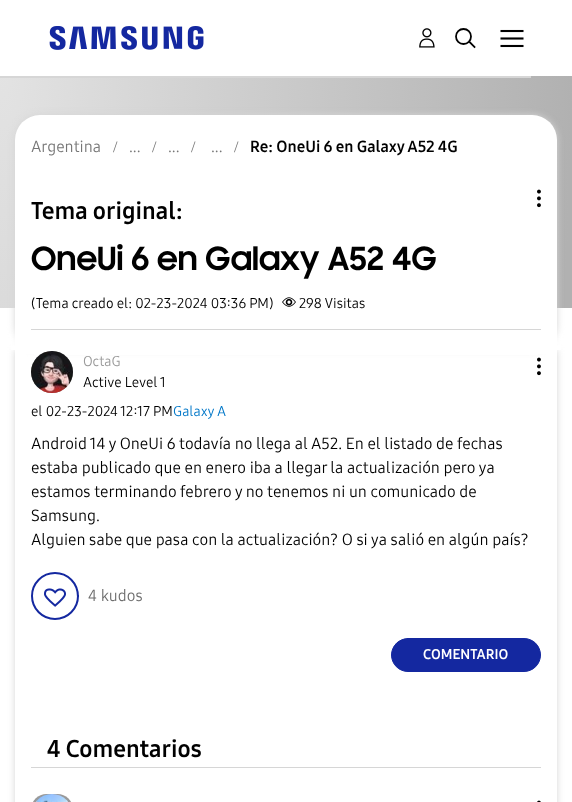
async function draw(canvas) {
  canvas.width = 572;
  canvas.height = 802;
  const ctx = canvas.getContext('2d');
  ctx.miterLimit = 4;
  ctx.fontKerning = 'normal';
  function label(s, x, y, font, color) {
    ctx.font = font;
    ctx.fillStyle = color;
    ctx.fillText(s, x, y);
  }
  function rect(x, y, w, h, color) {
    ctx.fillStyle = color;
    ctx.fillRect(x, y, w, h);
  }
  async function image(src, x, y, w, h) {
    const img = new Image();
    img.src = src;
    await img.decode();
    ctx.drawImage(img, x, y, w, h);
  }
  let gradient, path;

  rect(0, 0, 572, 802, '#fff');
  ctx.save();
  path = new Path2D('M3 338H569V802H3ZM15 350H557V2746H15Z');
  ctx.clip(path, 'evenodd');
  ctx.fillStyle = '#d6d6d6';
  ctx.filter = 'blur(3.5px)';
  ctx.beginPath();
  ctx.rect(15, 350, 542, 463);
  ctx.fill();
  ctx.filter = 'none';
  ctx.restore();
  rect(11, 345, 550, 5, '#fff');
  await image('assets/img1.png', 49, 26, 155, 24);
  await image('assets/img2.png', 419, 28, 16, 20);
  ctx.beginPath();
  ctx.arc(463.5, 36.5, 7.5, 0, 2 * Math.PI);
  ctx.strokeStyle = '#000';
  ctx.lineWidth = 1.8;
  ctx.stroke();
  path = new Path2D('M470 42.5L474.5 47');
  ctx.lineCap = 'square';
  ctx.stroke(path);
  await image('assets/img3.png', 500, 29, 24, 19);
  gradient = ctx.createRadialGradient(0, 27.01, 0, 0, 27.01, 572);
  gradient.addColorStop(0, '#e3e3e3');
  gradient.addColorStop(1, '#b1b1b1');
  ctx.fillStyle = gradient;
  ctx.beginPath();
  ctx.rect(0, 76, 572, 232);
  ctx.save();
  ctx.clip();
  ctx.scale(1, 1440 / 572);
  ctx.fillRect(0, 0, 572, 319);
  ctx.restore();
  rect(0, 76, 531, 2, '#d6d6d6');
  ctx.filter = 'blur(3.5px)';
  ctx.beginPath();
  ctx.roundRect(15, 115, 542, 235, 25);
  ctx.fill();
  ctx.filter = 'none';
  ctx.fillStyle = '#fff';
  ctx.beginPath();
  ctx.roundRect(15, 115, 542, 235, [25, 25, 0, 0]);
  ctx.fill();
  rect(31, 329, 510, 1, '#d6d6d6');
  label('Argentina', 31, 152, '16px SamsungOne', '#767676');
  label('/', 113, 152, '16px Liberation Serif', '#767676');
  label('...', 129, 152, '16px SamsungOne', '#767676');
  label('/', 152, 152, '16px Liberation Serif', '#767676');
  label('...', 168, 152, '16px SamsungOne', '#767676');
  label('/', 191, 152, '16px Liberation Serif', '#767676');
  label('...', 211, 152, '16px SamsungOne', '#767676');
  label('/', 234, 152, '16px Liberation Serif', '#767676');
  label('Re: OneUi 6 en Galaxy A52 4G', 250, 152, 'bold 16px SamsungOne', '#000');
  label('Tema original:', 31, 219, 'bold 24px SamsungOne', '#000');
  await image('assets/img4.png', 537, 189, 4, 19);
  label('OneUi 6 en Galaxy A52 4G', 31, 270, 'bold 32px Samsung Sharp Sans', '#000');
  label('(Tema creado el: 02-23-2024 03:36 PM)', 31, 308, '14px SamsungOne', '#000');
  await image('assets/img5.png', 282, 297, 14, 10);
  label('298 Visitas', 299, 308, '14px SamsungOne', '#000');
  rect(16, 350, 540, 4, '#fff');
  rect(34, 354, 504, 1, '#fff');
  ctx.fillStyle = '#999';
  ctx.filter = 'blur(0.5px)';
  ctx.beginPath();
  ctx.roundRect(31, 351, 42, 42, 21);
  ctx.fill();
  ctx.filter = 'none';
  await image('assets/img6.png', 31, 351, 42, 42);
  label('OctaG', 83, 366, '14px SamsungOne', '#999');
  label('Active Level 1', 83, 387, '14px SamsungOne', '#000');
  await image('assets/img4.png', 537, 357, 4, 19);
  label('el 02-23-2024', 31, 416, '14px SamsungOne', '#000');
  label('12:17 PM', 120, 416, '14px SamsungOne', '#000');
  label('Galaxy A', 173, 416, '14px SamsungOne', '#0077c8');
  label('Android 14 y OneUi 6 todavía no llega al A52. En el listado de fechas', 31, 449, '16px SamsungOne', '#000');
  label('estaba publicado que en enero iba a llegar la actualización pero ya', 31, 473, '16px SamsungOne', '#000');
  label('estamos terminando febrero y no tenemos ni un comunicado de', 31, 497, '16px SamsungOne', '#000');
  label('Samsung.', 31, 521, '16px SamsungOne', '#000');
  label('Alguien sabe que pasa con la actualización? O si ya salió en algún país?', 31, 545, '16px SamsungOne', '#000');
  ctx.beginPath();
  ctx.arc(55, 596, 23, 0, 2 * Math.PI);
  ctx.strokeStyle = '#1428a0';
  ctx.lineWidth = 2;
  ctx.stroke();
  await image('assets/img7.png', 44, 588, 22, 19);
  label('4 kudos', 88, 601, '16px SamsungOne', '#6e6e6e');
  ctx.fillStyle = '#1428a0';
  ctx.beginPath();
  ctx.roundRect(391.5, 638.5, 149, 33, 16.5);
  ctx.fill();
  ctx.lineWidth = 1;
  ctx.stroke();
  label('COMENTARIO', 423, 659, 'bold 14px SamsungOne', '#fff');
  label('4 Comentarios', 47, 757, 'bold 24px SamsungOne', '#000');
  rect(31, 767, 510, 1, '#d6d6d6');
  ctx.fillStyle = '#999';
  ctx.filter = 'blur(0.5px)';
  ctx.beginPath();
  ctx.roundRect(31, 794, 42, 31, 21);
  ctx.fill();
  ctx.filter = 'none';
  await image('assets/img8.png', 36, 794, 32, 8);
  await image('assets/img9.png', 537, 800, 4, 2);
}

draw(document.querySelector('canvas'));
